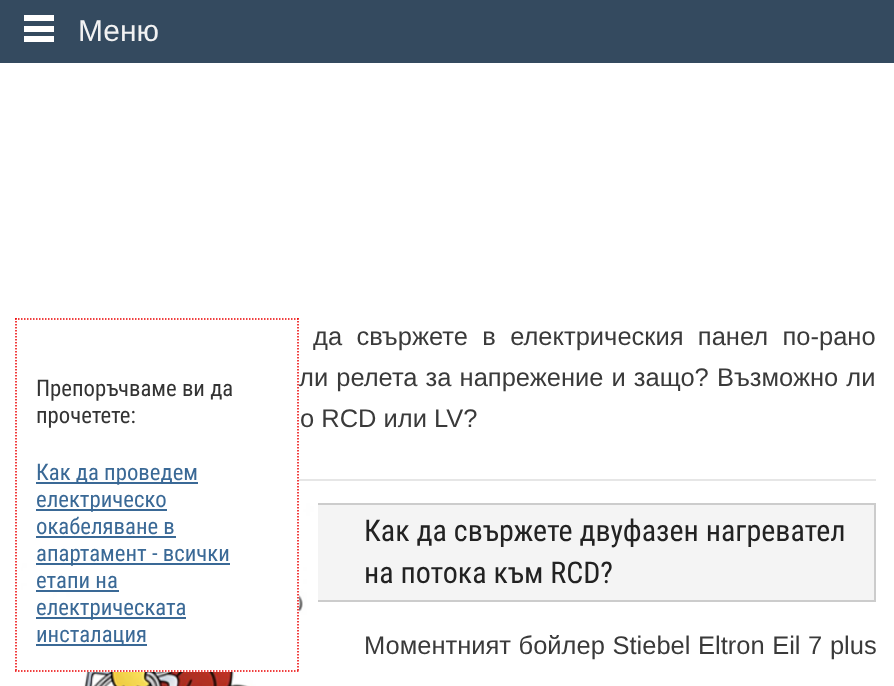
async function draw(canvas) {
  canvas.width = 894;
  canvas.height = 686;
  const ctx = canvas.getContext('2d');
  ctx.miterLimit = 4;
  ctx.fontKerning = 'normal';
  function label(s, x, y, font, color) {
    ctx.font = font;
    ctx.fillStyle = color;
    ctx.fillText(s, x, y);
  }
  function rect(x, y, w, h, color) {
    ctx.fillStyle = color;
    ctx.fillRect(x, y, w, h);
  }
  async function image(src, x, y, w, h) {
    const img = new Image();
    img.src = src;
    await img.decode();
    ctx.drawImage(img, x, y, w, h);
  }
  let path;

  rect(0, 0, 894, 686, '#fff');
  rect(0, 0, 894, 63, '#344a5f');
  rect(24, 15, 30, 6, '#fff');
  rect(24, 26, 30, 6, '#fff');
  rect(24, 36, 30, 6, '#fff');
  label('Меню', 78, 41, '30px Liberation Sans', '#f2f2f2');
  ctx.wordSpacing = '1px';
  label('ли релета за напрежение и защо? Възможно ли', 299, 386, '25.5px Liberation Sans', '#3a3a3a');
  rect(318, 505, 556, 95, '#f4f4f4');
  ctx.strokeStyle = '#ccc';
  ctx.lineWidth = 2;
  ctx.strokeRect(19, 504, 856, 97);
  await image('assets/img1.png', 18, 503, 300, 183);
  rect(84, 384, 215, 288, '#fff');
  path = new Path2D('M15 319H298.5');
  ctx.strokeStyle = '#eb0000';
  ctx.lineWidth = 1.5;
  ctx.setLineDash([1.5, 1.5]);
  ctx.stroke(path);
  path = new Path2D('M298 318V672');
  ctx.stroke(path);
  path = new Path2D('M15 671H298.5');
  ctx.stroke(path);
  path = new Path2D('M16 318V672');
  ctx.stroke(path);
  ctx.wordSpacing = '0px';
  label('Препоръчваме ви да', 36, 396, '22.75px Roboto Condensed', '#333');
  label('прочетете:', 36, 423, '22.75px Roboto Condensed', '#333');
  rect(36, 482, 162, 2, '#3a6996');
  label('Как да проведем', 36, 480, '22.75px Roboto Condensed', '#3a6996');
  rect(36, 509, 131, 2, '#3a6996');
  label('електрическо', 36, 507, '22.75px Roboto Condensed', '#3a6996');
  label('окабеляване в', 36, 534, '22.75px Roboto Condensed', '#3a6996');
  rect(36, 536, 140, 2, '#3a6996');
  rect(36, 563, 194, 2, '#3a6996');
  label('апартамент - всички', 36, 561, '22.75px Roboto Condensed', '#3a6996');
  label('етапи на', 36, 588, '22.75px Roboto Condensed', '#3a6996');
  rect(36, 590, 83, 2, '#3a6996');
  rect(36, 617, 150, 2, '#3a6996');
  label('електрическата', 36, 615, '22.75px Roboto Condensed', '#3a6996');
  rect(36, 644, 111, 2, '#3a6996');
  label('инсталация', 36, 642, '22.75px Roboto Condensed', '#3a6996');
  rect(299, 479, 577, 2, '#e6e6e6');
  ctx.wordSpacing = '7.25px';
  label('да свържете в електрическия панел по-рано', 313, 345, '25.5px Liberation Sans', '#3a3a3a');
  ctx.wordSpacing = '0px';
  label('о RCD или LV?', 300, 427, '25.5px Liberation Sans', '#3a3a3a');
  label('Как да свържете двуфазен нагревател', 364, 541, '30px Roboto Condensed', '#222');
  label('на потока към RCD?', 364, 583, '30px Roboto Condensed', '#222');
  ctx.wordSpacing = '0.5px';
  label('Моментният бойлер Stiebel Eltron Eil 7 plus', 364, 654, '25.5px Liberation Sans', '#3a3a3a');
}

draw(document.querySelector('canvas'));
